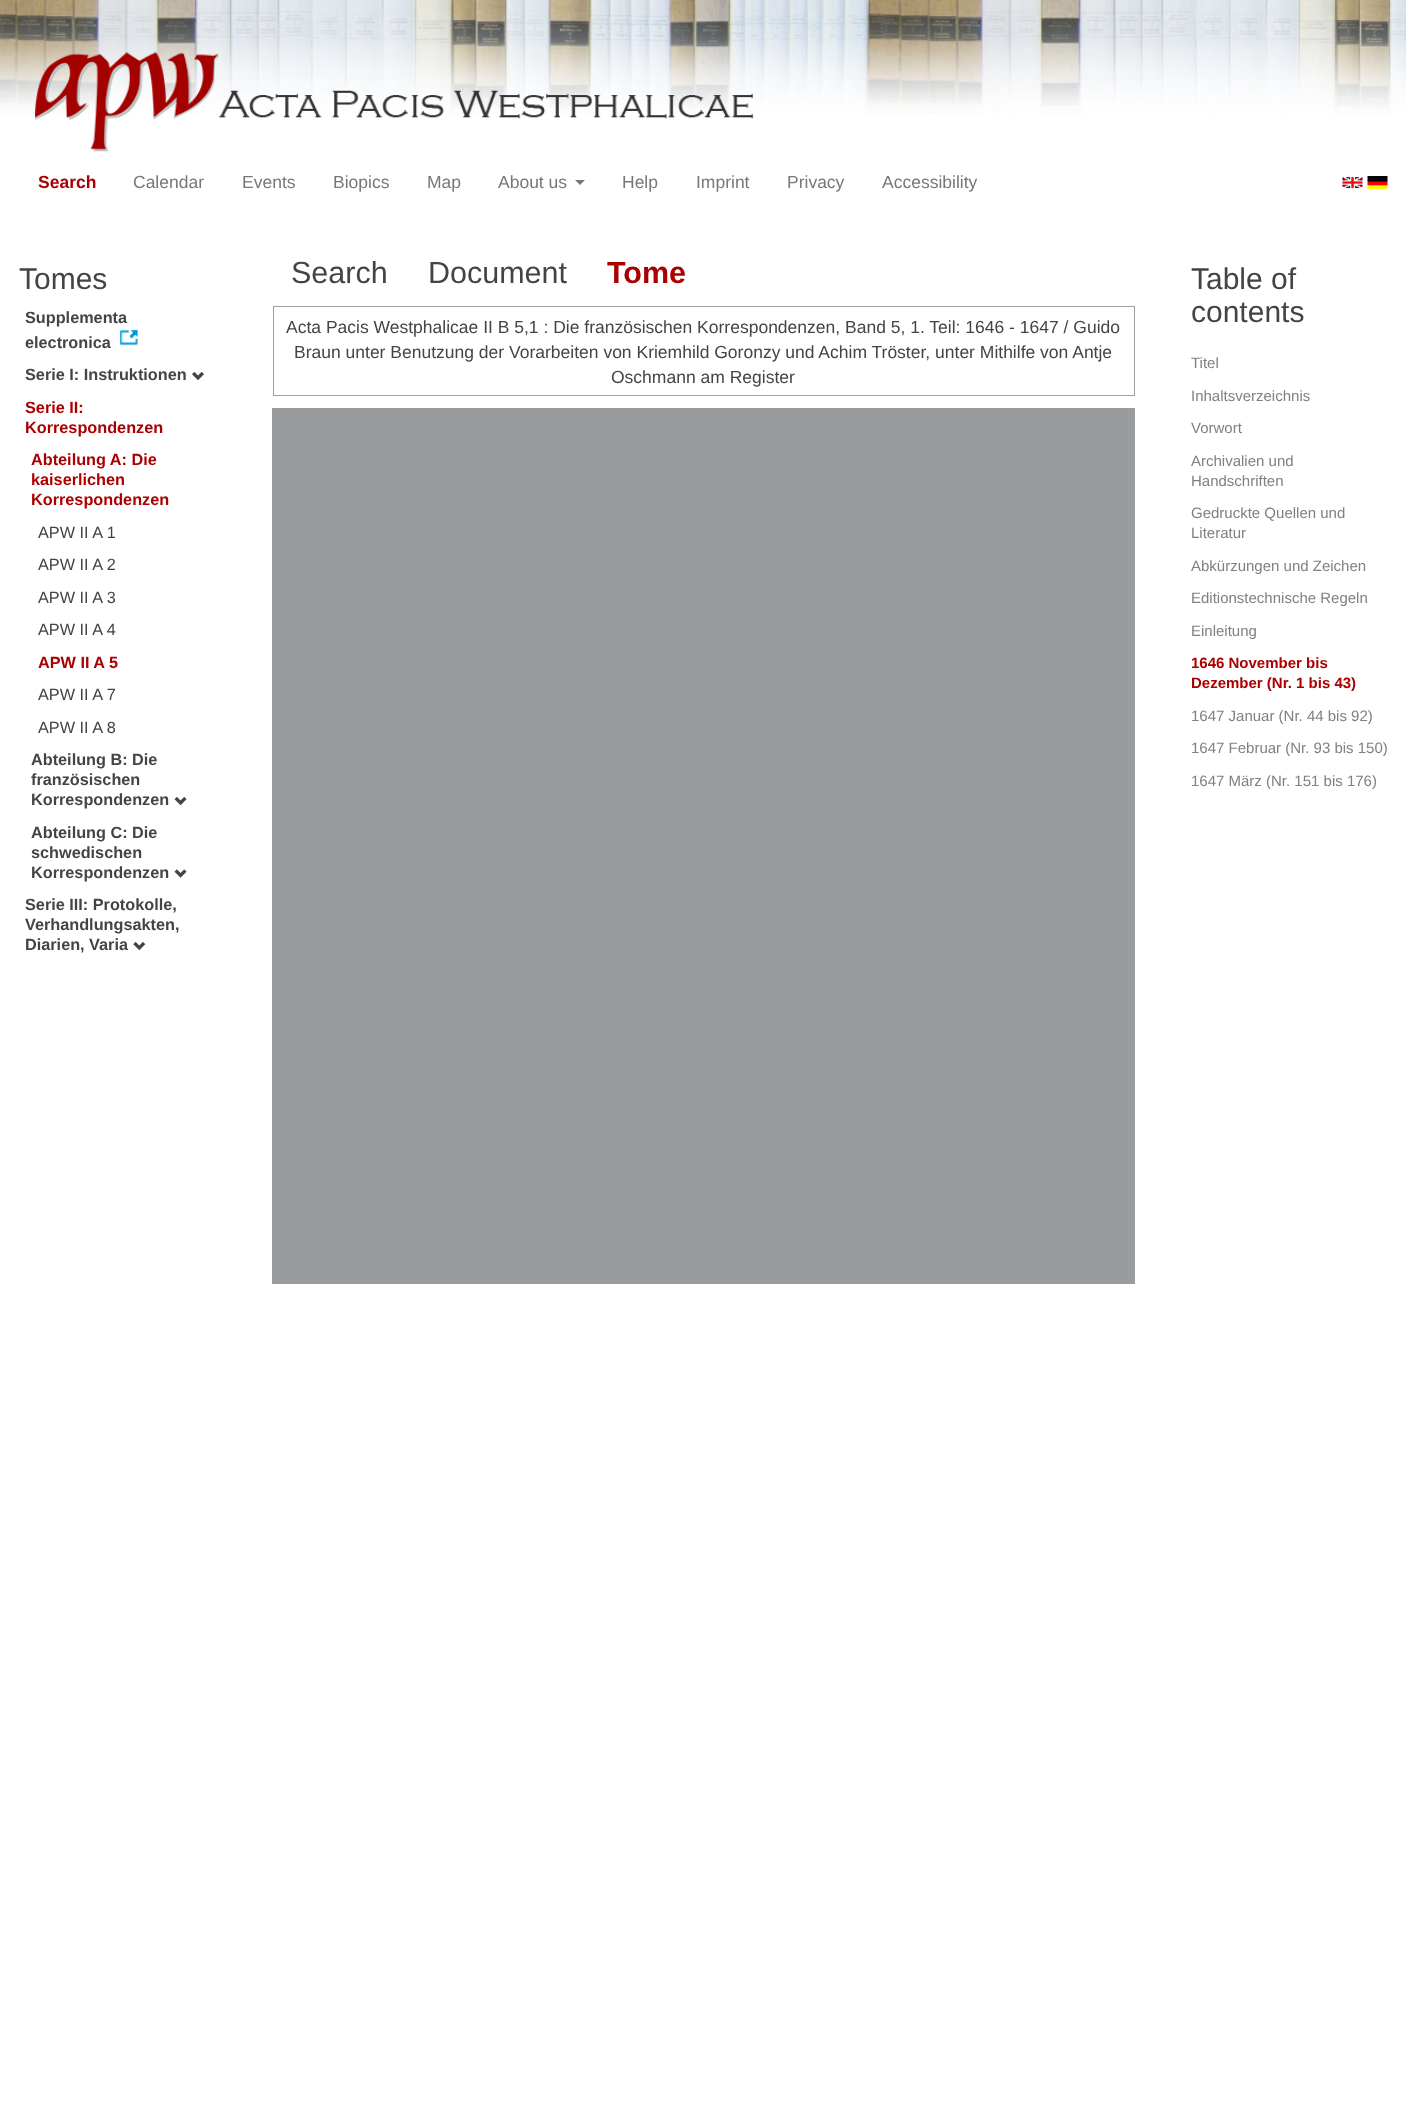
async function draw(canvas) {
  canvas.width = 1406;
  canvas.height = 2108;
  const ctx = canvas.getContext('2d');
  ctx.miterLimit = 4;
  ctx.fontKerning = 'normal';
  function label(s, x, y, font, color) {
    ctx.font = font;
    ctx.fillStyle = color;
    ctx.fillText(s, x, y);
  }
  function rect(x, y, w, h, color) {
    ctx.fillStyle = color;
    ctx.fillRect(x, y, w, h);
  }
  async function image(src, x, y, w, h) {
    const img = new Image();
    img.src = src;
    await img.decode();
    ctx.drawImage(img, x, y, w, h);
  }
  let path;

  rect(0, 0, 1406, 2108, '#fff');
  await image('assets/img1.png', 0, 0, 1406, 114);
  await image('assets/img2.png', 35, 52, 719, 100);
  label('Search', 38, 188, 'bold 17.5px Liberation Sans', '#a00');
  label('Calendar', 133, 188, '17.5px Liberation Sans', '#777');
  label('Events', 242, 188, '17.5px Liberation Sans', '#777');
  label('Biopics', 333, 188, '17.5px Liberation Sans', '#777');
  label('Map', 427, 188, '17.5px Liberation Sans', '#777');
  label('About us', 498, 188, '17.5px Liberation Sans', '#777');
  path = new Path2D('M575 180H585L580 185Z');
  ctx.fill(path);
  label('Help', 622, 188, '17.5px Liberation Sans', '#777');
  label('Imprint', 696, 188, '17.5px Liberation Sans', '#777');
  label('Privacy', 787, 188, '17.5px Liberation Sans', '#777');
  label('Accessibility', 882, 188, '17.5px Liberation Sans', '#777');
  await image('assets/img3.png', 1342, 177, 21, 12);
  await image('assets/img4.png', 1367, 176, 21, 14);
  label('Tomes', 19, 289, '30px Liberation Sans', '#444');
  label('Supplementa', 25, 323, 'bold 16.25px Liberation Sans', '#444');
  label('electronica', 25, 348, 'bold 16.25px Liberation Sans', '#444');
  await image('assets/img5.png', 119, 329, 19, 17);
  label('Serie I: Instruktionen', 25, 380, 'bold 16.25px Liberation Sans', '#444');
  await image('assets/img6.png', 192, 371, 12, 10);
  label('Serie II:', 25, 413, 'bold 16.25px Liberation Sans', '#a00');
  label('Korrespondenzen', 25, 433, 'bold 16.25px Liberation Sans', '#a00');
  label('Abteilung A: Die', 31, 465, 'bold 16.25px Liberation Sans', '#a00');
  label('kaiserlichen', 31, 485, 'bold 16.25px Liberation Sans', '#a00');
  label('Korrespondenzen', 31, 505, 'bold 16.25px Liberation Sans', '#a00');
  label('APW II A 1', 38, 538, '16.25px Liberation Sans', '#444');
  label('APW II A 2', 38, 570, '16.25px Liberation Sans', '#444');
  label('APW II A 3', 38, 603, '16.25px Liberation Sans', '#444');
  label('APW II A 4', 38, 635, '16.25px Liberation Sans', '#444');
  label('APW II A 5', 38, 668, 'bold 16.25px Liberation Sans', '#a00');
  label('APW II A 7', 38, 700, '16.25px Liberation Sans', '#444');
  label('APW II A 8', 38, 733, '16.25px Liberation Sans', '#444');
  label('Abteilung B: Die', 31, 765, 'bold 16.25px Liberation Sans', '#444');
  label('französischen', 31, 785, 'bold 16.25px Liberation Sans', '#444');
  label('Korrespondenzen', 31, 805, 'bold 16.25px Liberation Sans', '#444');
  await image('assets/img7.png', 174, 796, 13, 10);
  label('Abteilung C: Die', 31, 838, 'bold 16.25px Liberation Sans', '#444');
  label('schwedischen', 31, 858, 'bold 16.25px Liberation Sans', '#444');
  label('Korrespondenzen', 31, 878, 'bold 16.25px Liberation Sans', '#444');
  await image('assets/img8.png', 174, 869, 13, 9);
  label('Serie III: Protokolle,', 25, 910, 'bold 16.25px Liberation Sans', '#444');
  label('Verhandlungsakten,', 25, 930, 'bold 16.25px Liberation Sans', '#444');
  label('Diarien, Varia', 25, 950, 'bold 16.25px Liberation Sans', '#444');
  await image('assets/img9.png', 133, 941, 13, 10);
  label('Search', 291, 283, '30.5px Liberation Sans', '#444');
  label('Document', 428, 283, '30.5px Liberation Sans', '#444');
  label('Tome', 607, 283, 'bold 30.5px Liberation Sans', '#a00');
  ctx.strokeStyle = '#a0a0a0';
  ctx.strokeRect(273.5, 306.5, 861, 89);
  label('Acta Pacis Westphalicae II B 5,1 : Die französischen Korrespondenzen, Band 5, 1. Teil: 1646 - 1647 / Guido', 286, 333, '17.5px Liberation Sans', '#444');
  label('Braun unter Benutzung der Vorarbeiten von Kriemhild Goronzy und Achim Tröster, unter Mithilfe von Antje', 294, 358, '17.5px Liberation Sans', '#444');
  label('Oschmann am Register', 611, 383, '17.5px Liberation Sans', '#444');
  rect(272, 408, 863, 876, '#9a9b9d');
  label('Table of', 1191, 289, '30px Liberation Sans', '#444');
  label('contents', 1191, 322, '30px Liberation Sans', '#444');
  label('Titel', 1191, 368, '15px Liberation Sans', '#808080');
  label('Inhaltsverzeichnis', 1191, 401, '15px Liberation Sans', '#808080');
  label('Vorwort', 1191, 433, '15px Liberation Sans', '#808080');
  label('Archivalien und', 1191, 466, '15px Liberation Sans', '#808080');
  label('Handschriften', 1191, 486, '15px Liberation Sans', '#808080');
  label('Gedruckte Quellen und', 1191, 518, '15px Liberation Sans', '#808080');
  label('Literatur', 1191, 538, '15px Liberation Sans', '#808080');
  label('Abkürzungen und Zeichen', 1191, 571, '15px Liberation Sans', '#808080');
  label('Editionstechnische Regeln', 1191, 603, '15px Liberation Sans', '#808080');
  label('Einleitung', 1191, 636, '15px Liberation Sans', '#808080');
  label('1646 November bis', 1191, 668, 'bold 15px Liberation Sans', '#a00');
  label('Dezember (Nr. 1 bis 43)', 1191, 688, 'bold 15px Liberation Sans', '#a00');
  label('1647 Januar (Nr. 44 bis 92)', 1191, 721, '15px Liberation Sans', '#808080');
  label('1647 Februar (Nr. 93 bis 150)', 1191, 753, '15px Liberation Sans', '#808080');
  label('1647 März (Nr. 151 bis 176)', 1191, 786, '15px Liberation Sans', '#808080');
}

draw(document.querySelector('canvas'));
